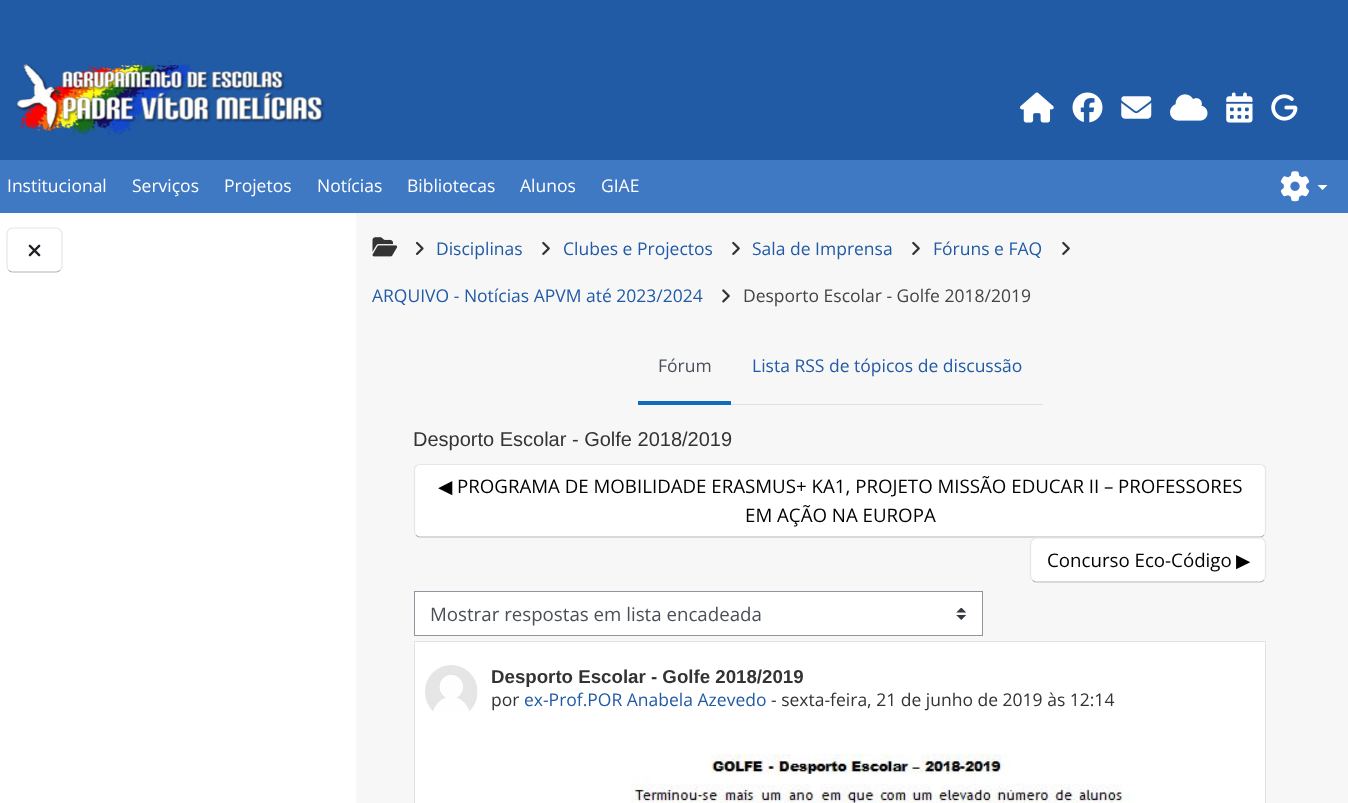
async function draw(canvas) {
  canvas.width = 1348;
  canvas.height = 803;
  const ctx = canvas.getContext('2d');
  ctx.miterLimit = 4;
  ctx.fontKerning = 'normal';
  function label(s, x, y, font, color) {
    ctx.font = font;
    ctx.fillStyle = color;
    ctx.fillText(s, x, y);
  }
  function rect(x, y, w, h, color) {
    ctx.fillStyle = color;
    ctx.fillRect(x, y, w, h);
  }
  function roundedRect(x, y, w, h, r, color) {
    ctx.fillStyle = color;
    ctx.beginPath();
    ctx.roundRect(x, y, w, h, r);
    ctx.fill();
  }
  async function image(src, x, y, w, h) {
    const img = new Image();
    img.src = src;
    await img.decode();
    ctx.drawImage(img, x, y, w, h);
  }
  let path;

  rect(0, 0, 1348, 803, '#f7f7f7');
  rect(0, 0, 1348, 160, '#215aa5');
  await image('assets/img1.png', 16, 61, 309, 75);
  await image('assets/img2.png', 1020, 92, 34, 31);
  await image('assets/img3.png', 1072, 92, 31, 31);
  await image('assets/img4.png', 1121, 96, 31, 23);
  await image('assets/img5.png', 1170, 94, 38, 27);
  await image('assets/img6.png', 1226, 92, 27, 31);
  await image('assets/img7.png', 1271, 94, 27, 27);
  rect(0, 160, 1348, 53, '#3f78c3');
  label('Institucional', 7, 192, '17.5px Open Sans', '#fff');
  label('Serviços', 132, 192, '17.5px Open Sans', '#fff');
  label('Projetos', 224, 192, '17.5px Open Sans', '#fff');
  label('Notícias', 317, 192, '17.5px Open Sans', '#fff');
  label('Bibliotecas', 407, 192, '17.5px Open Sans', '#fff');
  label('Alunos', 520, 192, '17.5px Open Sans', '#fff');
  label('GIAE', 601, 192, '17.5px Open Sans', '#fff');
  await image('assets/img8.png', 1280, 171, 30, 31);
  path = new Path2D('M1317.5 185H1327.5L1322.5 190Z');
  ctx.fill(path);
  rect(0, 213, 356, 590, '#fff');
  path = new Path2D('M60 270C59 271.5 57.5 272 56 272H12.5C11 272 9.5 271.5 8.5 270');
  ctx.strokeStyle = '#b3b3b3';
  ctx.lineWidth = 1.2;
  ctx.stroke(path);
  path = new Path2D('M8.5 270C7.5 269 7 267.5 7 266V234C7 232.5 7.5 231 8.5 230C9.5 228.5 11 228 12.5 228H56C57.5 228 59 228.5 60 230C61.5 231 62 232.5 62 234V266C62 267.5 61.5 269 60 270');
  ctx.strokeStyle = '#e6e6e6';
  ctx.stroke(path);
  await image('assets/img9.png', 28, 244, 13, 13);
  await image('assets/img10.png', 372, 237, 26, 20);
  await image('assets/img11.png', 416, 241, 8, 14);
  label('Disciplinas', 436, 255, '17.5px Open Sans', '#215aa5');
  await image('assets/img12.png', 542, 241, 8, 14);
  label('Clubes e Projectos', 563, 255, '17.5px Open Sans', '#215aa5');
  await image('assets/img12.png', 732, 241, 8, 14);
  label('Sala de Imprensa', 752, 255, '17.5px Open Sans', '#215aa5');
  await image('assets/img12.png', 912, 241, 8, 14);
  label('Fóruns e FAQ', 933, 255, '17.5px Open Sans', '#215aa5');
  await image('assets/img12.png', 1062, 241, 8, 14);
  label('ARQUIVO - Notícias APVM até 2023/2024', 372, 302, '17.5px Open Sans', '#215aa5');
  await image('assets/img13.png', 722, 289, 8, 14);
  label('Desporto Escolar - Golfe 2018/2019', 743, 302, '17.5px Open Sans', '#444');
  rect(638, 401, 93, 4, '#0f6cbf');
  label('Fórum', 658, 372, '17.5px Open Sans', '#495057');
  rect(731, 404, 312, 1, '#dee2e6');
  label('Lista RSS de tópicos de discussão', 752, 372, '17.5px Open Sans', '#215aa5');
  label('Desporto Escolar - Golfe 2018/2019', 413, 446, '20px Liberation Sans', '#333');
  roundedRect(414, 464, 852, 74, 6, '#fff');
  path = new Path2D('M1264 535C1263 536.5 1261.5 537 1260 537H420C418.5 537 417 536.5 416 535');
  ctx.strokeStyle = '#b3b3b3';
  ctx.stroke(path);
  path = new Path2D('M416 535C415 534 414.5 532.5 414.5 531V470C414.5 468.5 415 467 416 466C417 465 418.5 464.5 420 464.5H1260C1261.5 464.5 1263 465 1264 466C1265 467 1265.5 468.5 1265.5 470V531C1265.5 532.5 1265 534 1264 535');
  ctx.strokeStyle = '#e6e6e6';
  ctx.stroke(path);
  label('◀︎', 438, 493, '18.7px DejaVu Sans', '#000');
  label('PROGRAMA DE MOBILIDADE ERASMUS+ KA1, PROJETO MISSÃO EDUCAR II –', 457, 493, '18.7px Open Sans', '#000');
  label('PROFESSORES', 1118, 493, '18.7px Open Sans', '#000');
  label('EM AÇÃO NA EUROPA', 745, 522, '18.7px Open Sans', '#000');
  roundedRect(1030, 538, 236, 45, 6, '#fff');
  path = new Path2D('M1264 580C1263 581.5 1261.5 582 1260 582H1036C1035 582 1033.5 581.5 1032.5 580');
  ctx.strokeStyle = '#b3b3b3';
  ctx.stroke(path);
  path = new Path2D('M1032.5 580C1031 579 1030.5 577.5 1030.5 576V544C1030.5 542.5 1031 541 1032.5 540C1033.5 538.5 1035 538 1036 538H1260C1261.5 538 1263 538.5 1264 540C1265 541 1265.5 542.5 1265.5 544V576C1265.5 577.5 1265 579 1264 580');
  ctx.strokeStyle = '#e6e6e6';
  ctx.stroke(path);
  label('Concurso Eco-Código', 1047, 567, '18.7px Open Sans', '#000');
  label('▶︎', 1236, 567, '18.7px DejaVu Sans', '#000');
  rect(415, 592, 567, 43, '#fff');
  await image('assets/img14.png', 956, 608, 10, 12);
  ctx.strokeStyle = '#8f959e';
  ctx.lineWidth = 1;
  ctx.strokeRect(414.5, 591.5, 568, 44);
  label('Mostrar respostas em lista encadeada', 430, 621, '18.7px Open Sans', '#495057');
  ctx.fillStyle = '#fff';
  ctx.beginPath();
  ctx.rect(414.5, 641.5, 851, 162);
  ctx.fill();
  ctx.strokeStyle = '#dee2e6';
  ctx.stroke();
  await image('assets/img15.png', 425, 665, 53, 46);
  label('Desporto Escolar - Golfe 2018/2019', 491, 683, 'bold 18.7px Liberation Sans', '#333');
  label('por', 491, 706, '17.5px Open Sans', '#333');
  label('ex-Prof.POR Anabela Azevedo', 524, 706, '17.5px Open Sans', '#215aa5');
  label('- sexta-feira, 21 de junho de 2019 às 12:14', 771, 706, '17.5px Open Sans', '#333');
  await image('assets/img16.png', 631, 754, 500, 49);
}

draw(document.querySelector('canvas'));
